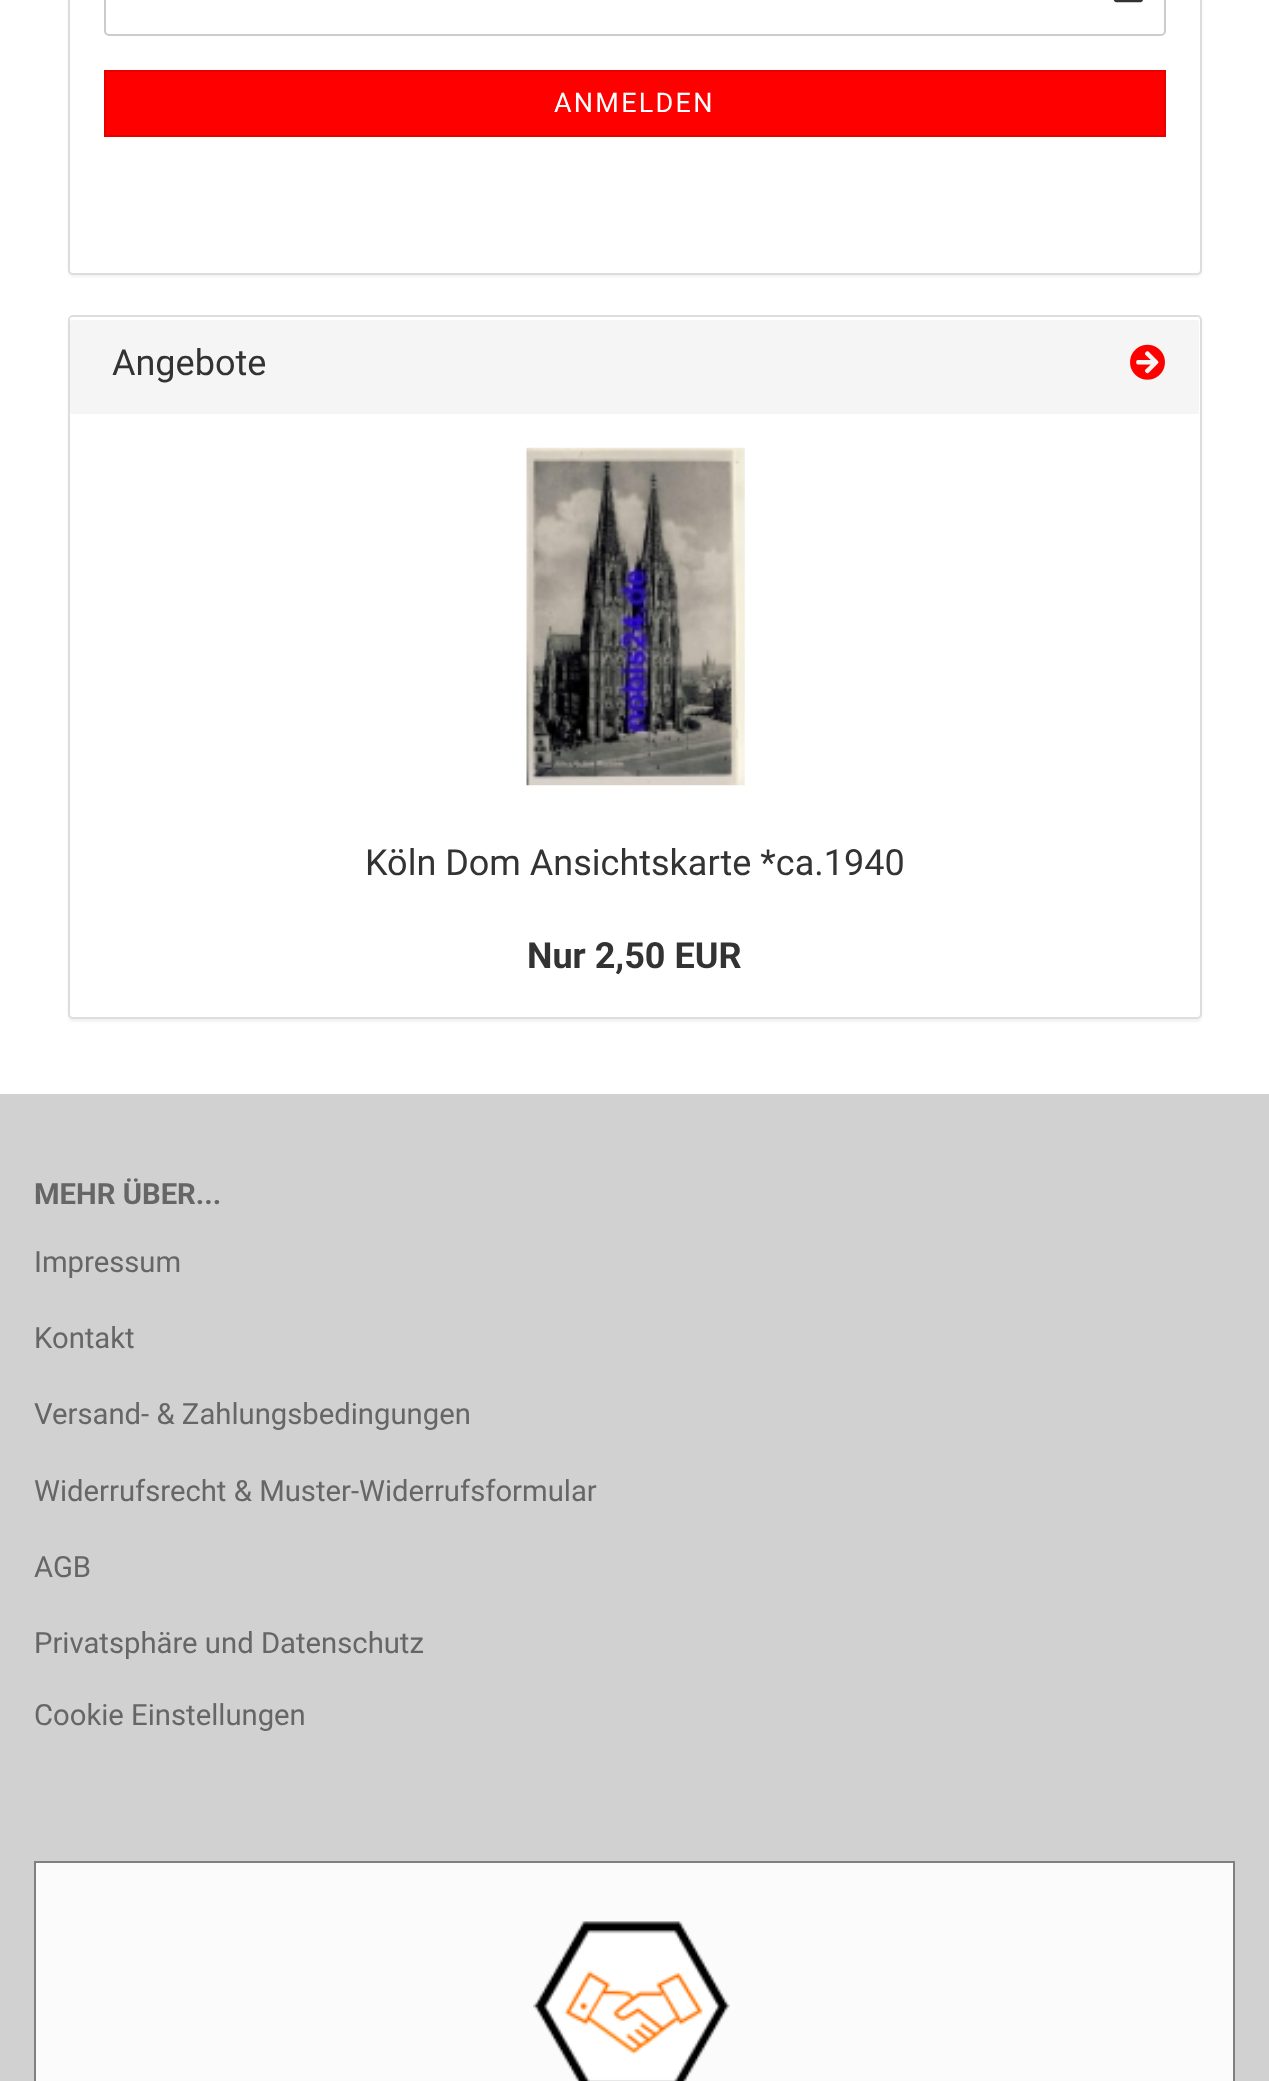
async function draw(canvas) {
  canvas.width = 1269;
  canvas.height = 2081;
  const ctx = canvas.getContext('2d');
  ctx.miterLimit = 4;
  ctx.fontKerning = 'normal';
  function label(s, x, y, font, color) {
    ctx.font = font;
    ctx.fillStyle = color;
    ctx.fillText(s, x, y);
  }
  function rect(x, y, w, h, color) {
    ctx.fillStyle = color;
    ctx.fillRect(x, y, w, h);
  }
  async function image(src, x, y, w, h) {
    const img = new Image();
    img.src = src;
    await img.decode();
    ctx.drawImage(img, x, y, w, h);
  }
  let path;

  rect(0, 0, 1269, 2081, '#fff');
  ctx.fillStyle = '#0000000d';
  ctx.filter = 'blur(1px)';
  ctx.beginPath();
  ctx.roundRect(68, -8, 1134, 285, 5);
  ctx.fill();
  ctx.filter = 'none';
  ctx.fillStyle = '#fff';
  ctx.beginPath();
  ctx.roundRect(69, -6, 1132, 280, 4);
  ctx.fill();
  ctx.strokeStyle = '#ddd';
  ctx.lineWidth = 2;
  ctx.stroke();
  ctx.beginPath();
  ctx.roundRect(105, -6, 1060, 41, 4);
  ctx.strokeStyle = '#ccc';
  ctx.stroke();
  await image('assets/img1.png', 1113, 0, 30, 3);
  ctx.fillStyle = '#f00';
  ctx.beginPath();
  ctx.rect(105, 71, 1060, 65);
  ctx.fill();
  ctx.strokeStyle = '#e60000';
  ctx.stroke();
  ctx.letterSpacing = '2.25px';
  label('ANMELDEN', 554, 112, '27px Roboto', '#fff');
  ctx.fillStyle = '#0000000d';
  ctx.filter = 'blur(1px)';
  ctx.beginPath();
  ctx.roundRect(68, 317, 1134, 705, 5);
  ctx.fill();
  ctx.filter = 'none';
  ctx.fillStyle = '#fff';
  ctx.beginPath();
  ctx.roundRect(69, 316, 1132, 702, 4);
  ctx.fill();
  ctx.strokeStyle = '#ddd';
  ctx.stroke();
  ctx.fillStyle = '#f5f5f5';
  ctx.beginPath();
  ctx.roundRect(70, 317, 1129, 97, [2, 2, 0, 0]);
  ctx.fill();
  ctx.fillStyle = '#fff';
  path = new Path2D('M72 320H1197C1198 320 1199 321 1199 322C1199 320 1200 317 1197 317H72L70 318V322C70 321 71 320 72 320Z');
  ctx.fill(path);
  ctx.letterSpacing = '0px';
  label('Angebote', 112, 375, '36px Roboto', '#333');
  await image('assets/img2.png', 1130, 344, 35, 36);
  await image('assets/img3.png', 526, 447, 219, 339);
  label('Köln Dom Ansichtskarte *ca.1940', 365, 875, '36px Roboto', '#333');
  label('Nur 2,50 EUR', 527, 968, 'bold 36px Roboto', '#333');
  rect(0, 1094, 1269, 987, '#d1d1d1');
  label('MEHR ÜBER...', 34, 1204, 'bold 29.25px Roboto', '#666');
  label('Impressum', 34, 1272, '29.25px Roboto', '#666');
  label('Kontakt', 34, 1348, '29.25px Roboto', '#666');
  label('Versand- & Zahlungsbedingungen', 34, 1424, '29.25px Roboto', '#666');
  label('Widerrufsrecht & Muster-Widerrufsformular', 34, 1501, '29.25px Roboto', '#666');
  label('AGB', 34, 1577, '29.25px Roboto', '#666');
  label('Privatsphäre und Datenschutz', 34, 1653, '29.25px Roboto', '#666');
  label('Cookie Einstellungen', 34, 1725, '29.25px Roboto', '#666');
  ctx.fillStyle = '#fbfbfb';
  ctx.beginPath();
  ctx.rect(35, 1862, 1199, 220);
  ctx.fill();
  ctx.strokeStyle = '#808080';
  ctx.stroke();
  await image('assets/img4.png', 533, 1921, 197, 160);
}

draw(document.querySelector('canvas'));
